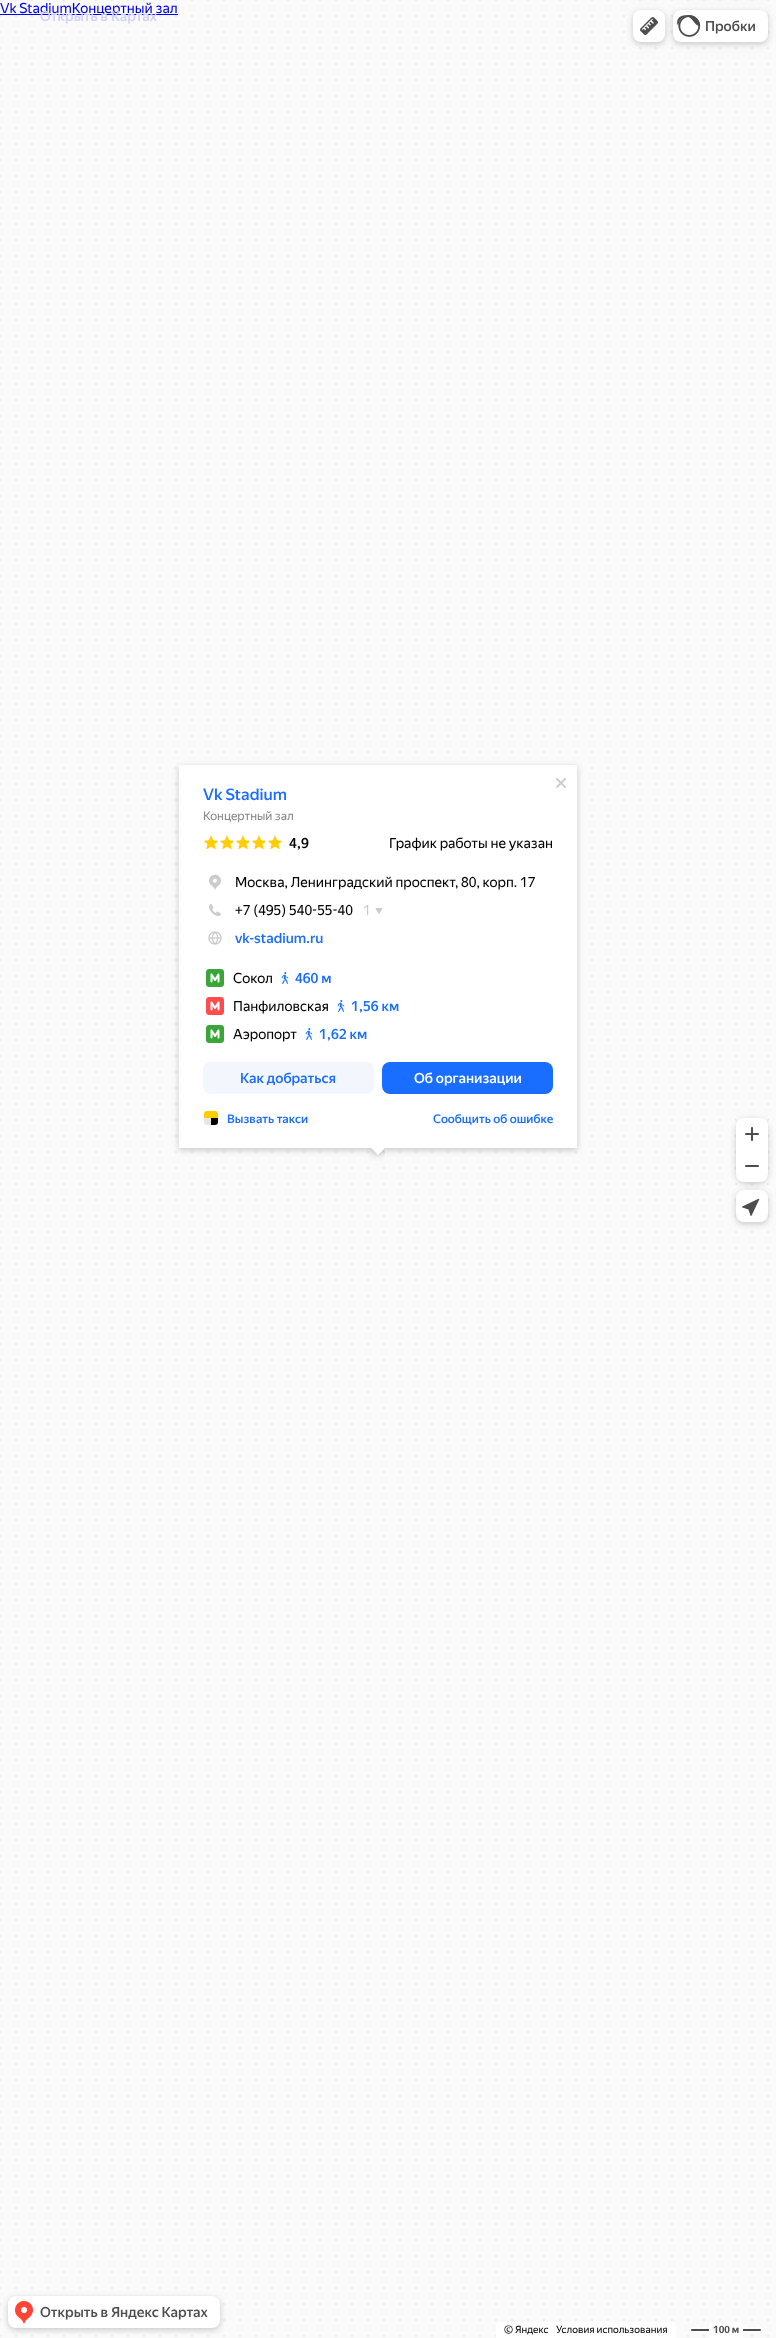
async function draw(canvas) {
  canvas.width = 776;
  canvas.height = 2338;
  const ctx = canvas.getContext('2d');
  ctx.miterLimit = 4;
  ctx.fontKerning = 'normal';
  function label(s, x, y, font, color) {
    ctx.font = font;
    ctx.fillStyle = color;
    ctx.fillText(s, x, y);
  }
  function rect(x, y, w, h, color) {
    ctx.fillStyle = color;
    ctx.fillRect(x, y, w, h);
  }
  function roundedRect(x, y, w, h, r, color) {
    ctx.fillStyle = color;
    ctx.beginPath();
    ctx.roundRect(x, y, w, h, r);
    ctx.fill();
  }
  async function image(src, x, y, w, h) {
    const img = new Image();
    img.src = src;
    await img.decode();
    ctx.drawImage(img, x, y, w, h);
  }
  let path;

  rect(0, 0, 776, 2338, '#fff');
  await image('assets/img1.png', 0, 0, 776, 2338);
  rect(0, 14, 178, 1, '#00e');
  label('Vk StadiumКонцертный зал', 0, 13, '14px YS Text', '#00e');
  label('Открыть в Картах', 40, 21, '500 14px YS Text', '#d2d2f8');
  ctx.fillStyle = '#00000033';
  ctx.filter = 'blur(3px)';
  ctx.beginPath();
  ctx.roundRect(633, 12, 32, 32, 8);
  ctx.fill();
  ctx.filter = 'none';
  roundedRect(633, 10, 32, 32, 8, '#fff');
  await image('assets/img2.png', 640, 17, 18, 18);
  ctx.fillStyle = '#00000033';
  ctx.filter = 'blur(3px)';
  ctx.beginPath();
  ctx.roundRect(673, 12, 95, 32, 8);
  ctx.fill();
  ctx.filter = 'none';
  roundedRect(673, 10, 95, 32, 8, '#fff');
  await image('assets/img3.png', 677, 15, 24, 22);
  label('Пробки', 705, 31, '500 14px YS Text', '#4d4d4d');
  ctx.fillStyle = '#00000033';
  ctx.filter = 'blur(3px)';
  ctx.beginPath();
  ctx.roundRect(736, 1120, 32, 64, 12);
  ctx.fill();
  ctx.filter = 'none';
  ctx.fillStyle = '#fff';
  ctx.beginPath();
  ctx.roundRect(736, 1118, 32, 32, [8, 8, 0, 0]);
  ctx.fill();
  await image('assets/img4.png', 745, 1127, 14, 14);
  ctx.beginPath();
  ctx.roundRect(736, 1150, 32, 32, [0, 0, 8, 8]);
  ctx.fill();
  await image('assets/img5.png', 745, 1165, 14, 2);
  ctx.fillStyle = '#00000033';
  ctx.filter = 'blur(3px)';
  ctx.beginPath();
  ctx.roundRect(736, 1192, 32, 32, 8);
  ctx.fill();
  ctx.filter = 'none';
  roundedRect(736, 1190, 32, 32, 8, '#fff');
  await image('assets/img6.png', 742, 1198, 18, 18);
  ctx.fillStyle = '#00000033';
  ctx.filter = 'blur(3px)';
  ctx.beginPath();
  ctx.roundRect(8, 2298, 212, 32, 8);
  ctx.fill();
  ctx.filter = 'none';
  roundedRect(8, 2296, 212, 32, 8, '#fff');
  await image('assets/img7.png', 15, 2301, 18, 23);
  label('Открыть в Яндекс Картах', 40, 2317, '500 14px YS Text', '#4d4d4d');
  ctx.fillStyle = '#fff';
  ctx.beginPath();
  ctx.roundRect(496, 2322, 180, 16, [4, 4, 0, 0]);
  ctx.fill();
  label('© Яндекс', 504, 2333, '10px YS Text', '#000');
  label('Условия использования', 556, 2333, '10px YS Text', '#000');
  roundedRect(689, 2327, 74, 6, 3, '#fdfdfd');
  roundedRect(691, 2329, 70, 2, 1, '#4d4d4d');
  ctx.fillStyle = '#fff';
  ctx.beginPath();
  ctx.roundRect(709, 2322, 34, 16, [4, 4, 0, 0]);
  ctx.fill();
  label('100 м', 713, 2333, 'bold 10px YS Text', '#4d4d4d');
  ctx.fillStyle = '#00000033';
  ctx.filter = 'blur(3px)';
  ctx.beginPath();
  ctx.rect(179, 767, 398, 383);
  ctx.fill();
  ctx.filter = 'none';
  rect(179, 765, 398, 383, '#fff');
  await image('assets/img8.png', 556, 778, 10, 10);
  label('Vk Stadium', 203, 800, '500 16px YS Text', '#196dff');
  label('Концертный зал', 203, 820, '12px YS Text', '#878787');
  await image('assets/img9.png', 204, 836, 14, 13);
  await image('assets/img9.png', 220, 836, 14, 13);
  await image('assets/img9.png', 236, 836, 14, 13);
  await image('assets/img9.png', 252, 836, 14, 13);
  await image('assets/img9.png', 268, 836, 14, 13);
  label('4,9', 289, 848, '500 14px YS Text', '#000');
  label('График работы не указан', 389, 848, '14px YS Text', '#000');
  await image('assets/img10.png', 209, 874, 12, 16);
  label('Москва, Ленинградский проспект, 80, корп. 17', 235, 887, '14px YS Text', '#000');
  await image('assets/img11.png', 209, 904, 12, 12);
  label('+7 (495) 540-55-40', 235, 915, '14px YS Text', '#000');
  label('1', 363, 915, '14px YS Text', '#ccc');
  await image('assets/img12.png', 375, 908, 8, 6);
  await image('assets/img13.png', 208, 931, 14, 14);
  label('vk-stadium.ru', 235, 943, '500 14px YS Text', '#196dff');
  await image('assets/img14.png', 206, 969, 18, 18);
  label('Сокол', 233, 983, '14px YS Text', '#000');
  await image('assets/img15.png', 281, 972, 8, 12);
  label('460 м', 295, 983, '500 14px YS Text', '#196dff');
  await image('assets/img16.png', 206, 997, 18, 18);
  label('Панфиловская', 233, 1011, '14px YS Text', '#000');
  await image('assets/img15.png', 337, 1000, 8, 12);
  label('1,56 км', 351, 1011, '500 14px YS Text', '#196dff');
  await image('assets/img14.png', 206, 1025, 18, 18);
  label('Аэропорт', 233, 1039, '14px YS Text', '#000');
  await image('assets/img15.png', 305, 1028, 8, 12);
  label('1,62 км', 319, 1039, '500 14px YS Text', '#196dff');
  roundedRect(203, 1062, 171, 32, 8, '#f3f6fc');
  label('Как добраться', 240, 1083, '500 14px YS Text', '#196dff');
  roundedRect(382, 1062, 171, 32, 8, '#196dff');
  label('Об организации', 414, 1083, '500 14px YS Text', '#fff');
  await image('assets/img17.png', 204, 1111, 14, 14);
  label('Вызвать такси', 227, 1123, '500 12px YS Text', '#196dff');
  label('Сообщить об ошибке', 433, 1123, '500 12px YS Text', '#196dff');
  ctx.save();
  ctx.beginPath();
  ctx.rect(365, 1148, 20, 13);
  ctx.clip();
  ctx.fillStyle = '#00000033';
  ctx.filter = 'blur(3px)';
  ctx.beginPath();
  ctx.rect(373, 1145, 10, 10);
  ctx.fill();
  ctx.filter = 'none';
  ctx.restore();
  ctx.save();
  ctx.beginPath();
  ctx.rect(365, 1148, 20, 13);
  ctx.clip();
  ctx.fillStyle = '#fff';
  path = new Path2D('M378 1141L385 1148L378 1155L371 1148Z');
  ctx.fill(path);
  ctx.restore();
}

draw(document.querySelector('canvas'));
